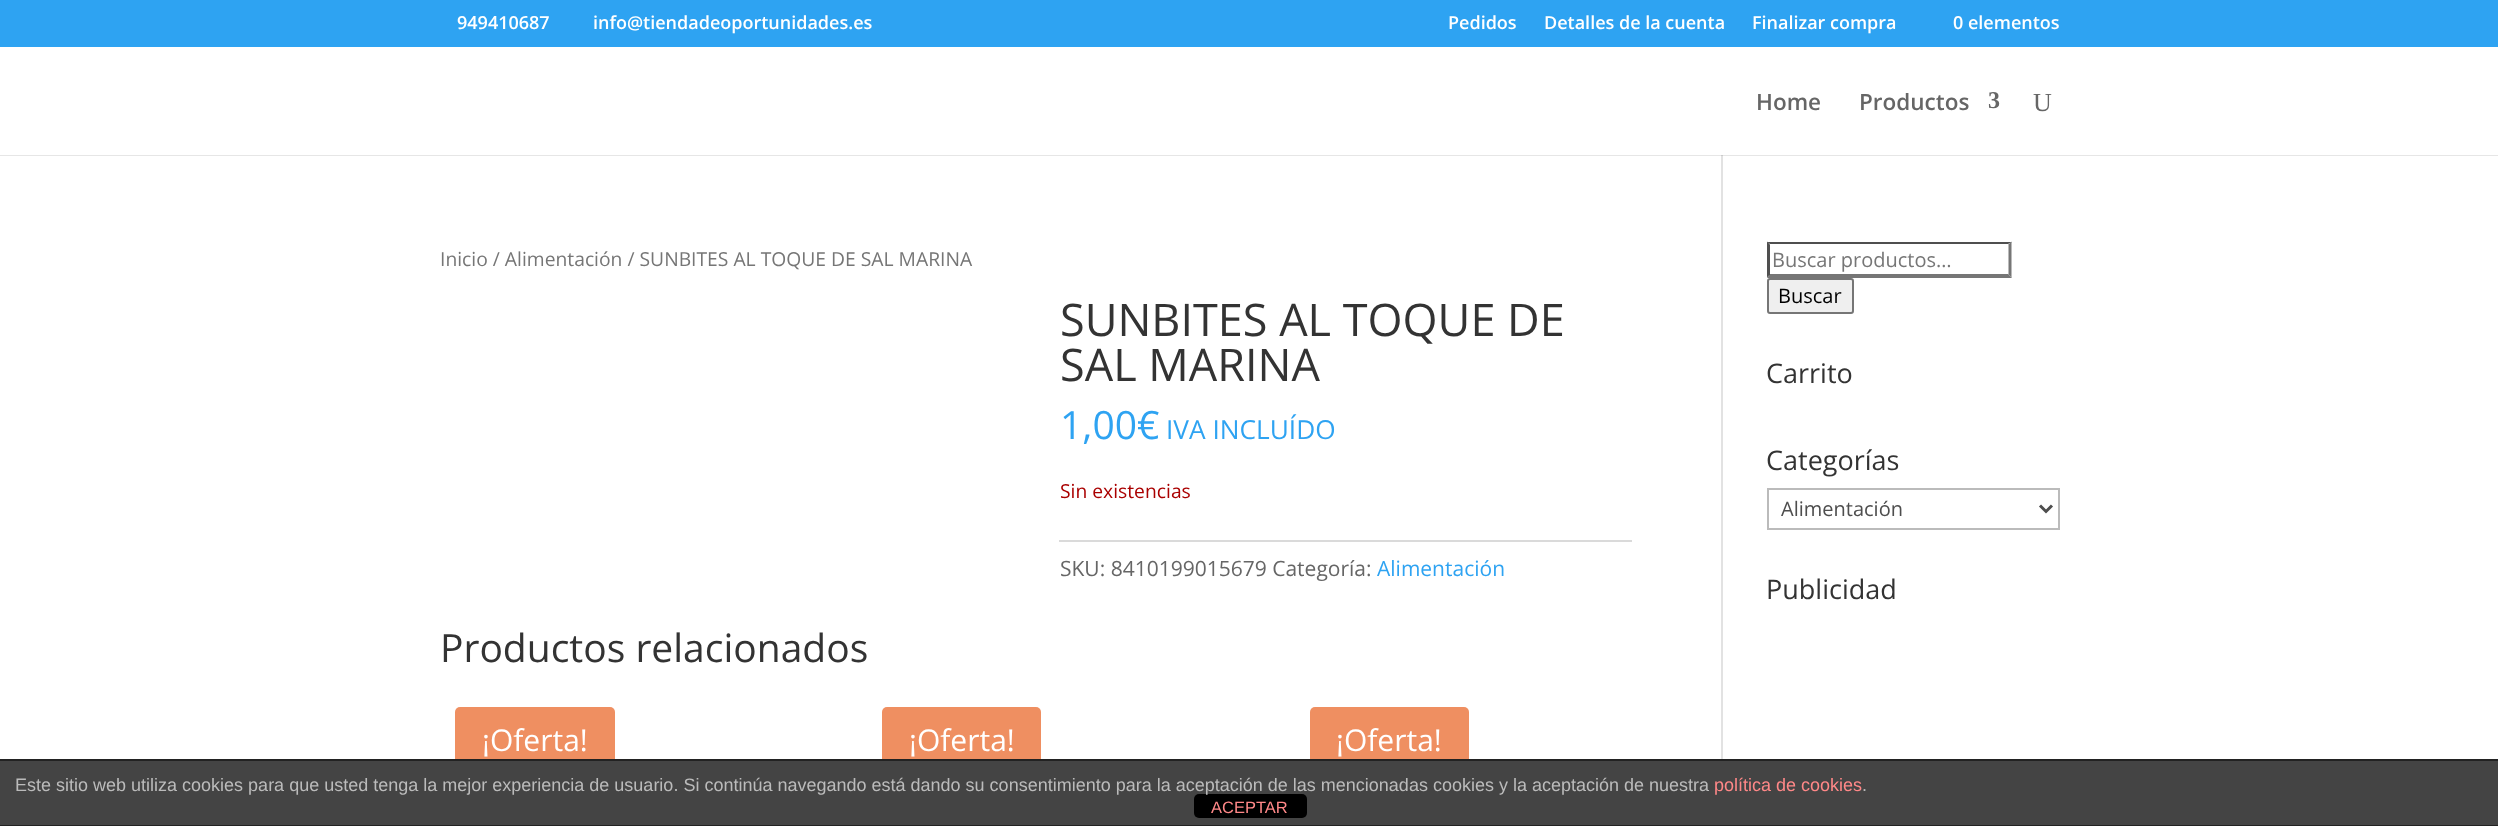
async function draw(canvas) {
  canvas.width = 2498;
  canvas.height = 826;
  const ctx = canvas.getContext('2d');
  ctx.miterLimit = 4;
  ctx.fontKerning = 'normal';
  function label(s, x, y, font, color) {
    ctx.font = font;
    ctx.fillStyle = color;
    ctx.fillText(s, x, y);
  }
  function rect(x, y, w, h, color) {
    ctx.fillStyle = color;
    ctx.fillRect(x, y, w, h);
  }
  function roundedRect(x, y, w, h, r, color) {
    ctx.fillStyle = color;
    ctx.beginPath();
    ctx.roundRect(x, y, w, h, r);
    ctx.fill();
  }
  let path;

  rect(0, 0, 2498, 826, '#fff');
  rect(0, 155, 2498, 1, '#e6e6e6');
  rect(0, 0, 2498, 47, '#2ea3f2');
  label('949410687', 457, 29, '600 18px Open Sans', '#fff');
  label('info@tiendadeoportunidades.es', 593, 29, '600 18px Open Sans', '#fff');
  label('Pedidos', 1448, 29, '600 18px Open Sans', '#fff');
  label('Detalles de la cuenta', 1544, 29, '600 18px Open Sans', '#fff');
  label('Finalizar compra', 1752, 29, '600 18px Open Sans', '#fff');
  label('0 elementos', 1953, 29, '600 18px Open Sans', '#fff');
  label('Home', 1756, 110, '600 22.5px Open Sans', '#666');
  label('Productos', 1859, 110, '600 22.5px Open Sans', '#666');
  label('3', 1988, 108, 'bold 24px Liberation Serif', '#666');
  label('U', 2033, 111, '26px Liberation Serif', '#666');
  rect(1721, 155, 2, 604, '#e2e2e2');
  rect(1721, 155, 2, 1, '#cbcbcb');
  label('Inicio / Alimentación / SUNBITES AL TOQUE DE SAL MARINA', 440, 266, '19.3px Open Sans', '#767676');
  label('SUNBITES AL TOQUE DE', 1060, 336, '45px Open Sans', '#333');
  label('SAL MARINA', 1060, 381, '45px Open Sans', '#333');
  label('1,00€', 1060, 439, '39px Open Sans', '#2ea3f2');
  label('IVA INCLUÍDO', 1166, 439, '26.25px Open Sans', '#2ea3f2');
  label('Sin existencias', 1060, 498, '19.3px Open Sans', '#a00');
  rect(1059, 540, 573, 2, '#dadada');
  label('SKU: 8410199015679 Categoría:', 1060, 576, '21px Open Sans', '#666');
  label('Alimentación', 1377, 576, '21px Open Sans', '#2ea3f2');
  label('Productos relacionados', 440, 662, '39px Open Sans', '#333');
  roundedRect(455, 707, 160, 69, 5, '#ef8f61');
  label('¡Oferta!', 482, 751, '30px Open Sans', '#fff');
  roundedRect(882, 707, 159, 69, 5, '#ef8f61');
  label('¡Oferta!', 909, 751, '30px Open Sans', '#fff');
  roundedRect(1310, 707, 159, 69, 5, '#ef8f61');
  label('¡Oferta!', 1336, 751, '30px Open Sans', '#fff');
  ctx.fillStyle = '#4f4f4f';
  path = new Path2D('M1767 242H2012L2008 244H1770Z');
  ctx.fill(path);
  ctx.fillStyle = '#767676';
  path = new Path2D('M2011.5 241.5V277.5L2008.5 274.5V244.5Z');
  ctx.fill(path);
  path = new Path2D('M2012 278H1767L1770 274H2008Z');
  ctx.fill(path);
  ctx.fillStyle = '#4f4f4f';
  path = new Path2D('M1767 277.5V241.5L1770 244.5V274.5Z');
  ctx.fill(path);
  label('Buscar productos…', 1772, 267, '20px Open Sans', '#767676');
  ctx.fillStyle = '#efefef';
  ctx.beginPath();
  ctx.roundRect(1768, 279, 85, 34, 2);
  ctx.fill();
  ctx.strokeStyle = '#767676';
  ctx.lineWidth = 2;
  ctx.stroke();
  label('Buscar', 1778, 303, '20px Open Sans', '#000');
  label('Carrito', 1766, 383, '27px Open Sans', '#333');
  label('Categorías', 1766, 470, '27px Open Sans', '#333');
  ctx.strokeStyle = '#bbb';
  ctx.strokeRect(1768, 489, 291, 40);
  path = new Path2D('M2040 505.5L2046 511.5L2052 505.5');
  ctx.strokeStyle = '#4e4e4e';
  ctx.lineWidth = 3;
  ctx.stroke(path);
  label('Alimentación', 1781, 516, '20px Open Sans', '#4e4e4e');
  label('Publicidad', 1766, 599, '27px Open Sans', '#333');
  rect(0, 761, 2498, 64, '#444');
  rect(0, 759, 2498, 2, '#222');
  rect(0, 825, 2498, 1, '#222');
  roundedRect(1194, 794, 113, 24, 5, '#000');
  label('Este sitio web utiliza cookies para que usted tenga la mejor experiencia de usuario. Si continúa navegando está dando su consentimiento para la aceptación de las mencionadas cookies y la aceptación de nuestra', 15, 791, '18px Liberation Sans', '#bbb');
  label('política de cookies', 1714, 791, '18px Liberation Sans', '#f88');
  label('.', 1862, 791, '18px Liberation Sans', '#bbb');
  label('ACEPTAR', 1211, 813, '16.5px Liberation Sans', '#f88');
}

draw(document.querySelector('canvas'));
